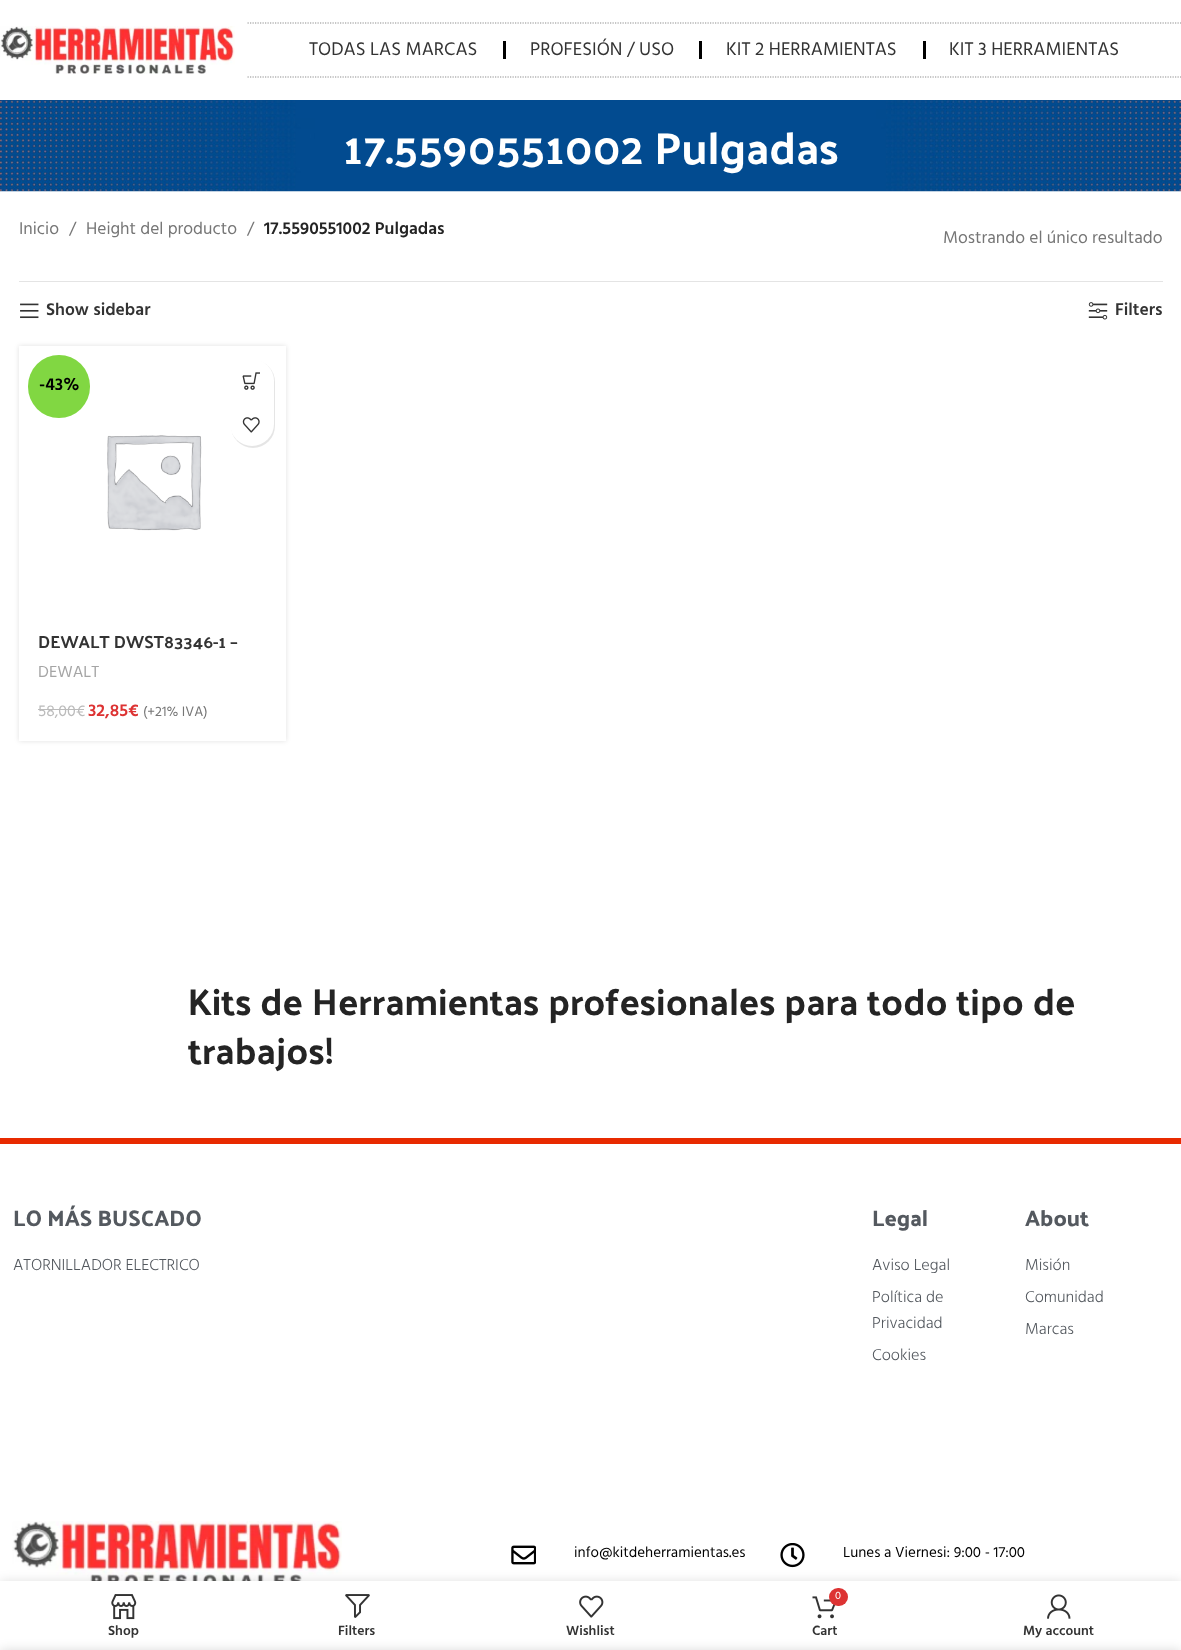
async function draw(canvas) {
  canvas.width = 1181;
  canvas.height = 1650;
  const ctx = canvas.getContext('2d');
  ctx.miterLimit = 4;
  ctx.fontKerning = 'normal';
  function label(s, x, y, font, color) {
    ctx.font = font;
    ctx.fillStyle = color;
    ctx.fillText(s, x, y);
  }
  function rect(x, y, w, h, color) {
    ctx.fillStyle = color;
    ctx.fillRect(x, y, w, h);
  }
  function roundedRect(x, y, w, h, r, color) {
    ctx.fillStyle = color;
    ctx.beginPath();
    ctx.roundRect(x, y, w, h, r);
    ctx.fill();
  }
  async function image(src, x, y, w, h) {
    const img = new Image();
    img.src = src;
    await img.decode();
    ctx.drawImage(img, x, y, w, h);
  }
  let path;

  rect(0, 0, 1181, 1650, '#fff');
  await image('assets/img1.png', 0, 26, 235, 48);
  path = new Path2D('M247.5 23H1181');
  ctx.strokeStyle = '#8e8e8e';
  ctx.lineWidth = 1.2;
  ctx.setLineDash([1.25, 1.25]);
  ctx.stroke(path);
  path = new Path2D('M247.5 77H1181');
  ctx.stroke(path);
  label('TODAS LAS MARCAS', 309, 55, '18.75px Hind', '#333');
  rect(503, 41, 3, 18, '#000');
  label('PROFESIÓN / USO', 530, 55, '18.75px Hind', '#333');
  rect(699, 41, 3, 18, '#000');
  label('KIT 2 HERRAMIENTAS', 726, 55, '18.75px Hind', '#333');
  rect(923, 41, 3, 18, '#000');
  label('KIT 3 HERRAMIENTAS', 949, 55, '18.75px Hind', '#333');
  await image('assets/img2.png', 0, 100, 1181, 92);
  label('17.5590551002 Pulgadas', 343, 164, '45px Palanquin Dark', '#fff');
  rect(19, 281, 1144, 1, '#e4e4e4');
  label('Inicio', 19, 234, '17.5px Hind', '#767676');
  label('/', 69, 234, '17.5px Hind', '#767676');
  label('Height del producto', 86, 234, '17.5px Hind', '#767676');
  label('/', 247, 234, '17.5px Hind', '#767676');
  label('17.5590551002 Pulgadas', 264, 234, '600 17.5px Hind', '#242424');
  label('Mostrando el único resultado', 943, 243, '17.5px Hind', '#767676');
  await image('assets/img3.png', 20, 303, 19, 16);
  label('Show sidebar', 46, 315, '600 17.5px Hind', '#333');
  await image('assets/img4.png', 1088, 302, 20, 18);
  label('Filters', 1115, 315, '600 17.5px Hind', '#333');
  ctx.fillStyle = '#0000001f';
  ctx.filter = 'blur(2.5px)';
  ctx.beginPath();
  ctx.rect(19, 346, 267, 395);
  ctx.fill();
  ctx.filter = 'none';
  rect(19, 346, 267, 395, '#fff');
  roundedRect(28, 355, 62, 63, 31, '#81d742');
  label('-43%', 39, 390, '600 17.5px Hind', '#000');
  await image('assets/img5.png', 107, 435, 95, 96);
  ctx.fillStyle = '#0000001a';
  ctx.filter = 'blur(0.5px)';
  ctx.beginPath();
  ctx.roundRect(231, 360, 44, 88, 22);
  ctx.fill();
  ctx.filter = 'none';
  roundedRect(230, 359, 44, 87, 22, '#fff');
  await image('assets/img6.png', 242, 372, 18, 18);
  await image('assets/img7.png', 242, 417, 18, 16);
  label('DEWALT DWST83346-1 –', 38, 648, '17.5px Palanquin Dark', '#333');
  label('DEWALT', 38, 677, '16.5px Hind', '#a5a5a5');
  label('58,00€', 38, 716, '16px Hind', '#bbb');
  rect(38, 709, 46, 1, '#bbb');
  label('32,85€', 88, 716, '600 17.5px Hind', '#d33');
  label('(+21% IVA)', 143, 716, '14px Hind', '#767676');
  label('Kits de Herramientas profesionales para todo tipo de', 188, 1015, '37.5px Palanquin Dark', '#242424');
  label('trabajos!', 188, 1064, '37.5px Palanquin Dark', '#242424');
  rect(0, 1138, 1181, 6, '#e82a00');
  label('LO MÁS BUSCADO', 13, 1226, '500 22.5px Palanquin Dark', '#54595f');
  label('ATORNILLADOR ELECTRICO', 13, 1270, '300 16.25px Hind', '#54595f');
  label('Legal', 872, 1226, '500 22.5px Palanquin Dark', '#54595f');
  label('Aviso Legal', 872, 1270, '300 16.25px Hind', '#54595f');
  label('Política de', 872, 1302, '300 16.25px Hind', '#54595f');
  label('Privacidad', 872, 1328, '300 16.25px Hind', '#54595f');
  label('Cookies', 872, 1360, '300 16.25px Hind', '#54595f');
  label('About', 1025, 1226, '500 22.5px Palanquin Dark', '#54595f');
  label('Misión', 1025, 1270, '300 16.25px Hind', '#54595f');
  label('Comunidad', 1025, 1302, '300 16.25px Hind', '#54595f');
  label('Marcas', 1025, 1334, '300 16.25px Hind', '#54595f');
  await image('assets/img8.png', 12, 1521, 330, 60);
  await image('assets/img9.png', 511, 1545, 25, 20);
  label('info@kitdeherramientas.es', 574, 1557, '15px Hind', '#000');
  await image('assets/img10.png', 780, 1543, 25, 25);
  label('Lunes a Viernesi: 9:00 - 17:00', 843, 1557, '15px Hind', '#000');
  ctx.fillStyle = '#0000001f';
  ctx.filter = 'blur(5.5px)';
  ctx.beginPath();
  ctx.rect(0, 1581, 1181, 69);
  ctx.fill();
  ctx.filter = 'none';
  rect(0, 1581, 1181, 69, '#fff');
  await image('assets/img11.png', 111, 1594, 26, 26);
  label('Shop', 108, 1635, '600 13.75px Hind', '#333');
  await image('assets/img12.png', 345, 1594, 25, 24);
  label('Filters', 338, 1635, '600 13.75px Hind', '#333');
  await image('assets/img13.png', 579, 1595, 25, 23);
  label('Wishlist', 566, 1635, '600 13.75px Hind', '#333');
  await image('assets/img14.png', 812, 1596, 24, 23);
  roundedRect(829, 1588, 19, 18, 9, '#d33');
  label('0', 835, 1599, '11px Hind', '#fff');
  label('Cart', 812, 1635, '600 13.75px Hind', '#333');
  await image('assets/img15.png', 1047, 1594, 24, 25);
  label('My account', 1023, 1635, '600 13.75px Hind', '#333');
  ctx.fillStyle = '#00000024';
  ctx.filter = 'blur(5.5px)';
  ctx.beginPath();
  ctx.rect(0, 1650, 1181, 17);
  ctx.fill();
  ctx.filter = 'none';
}

draw(document.querySelector('canvas'));
